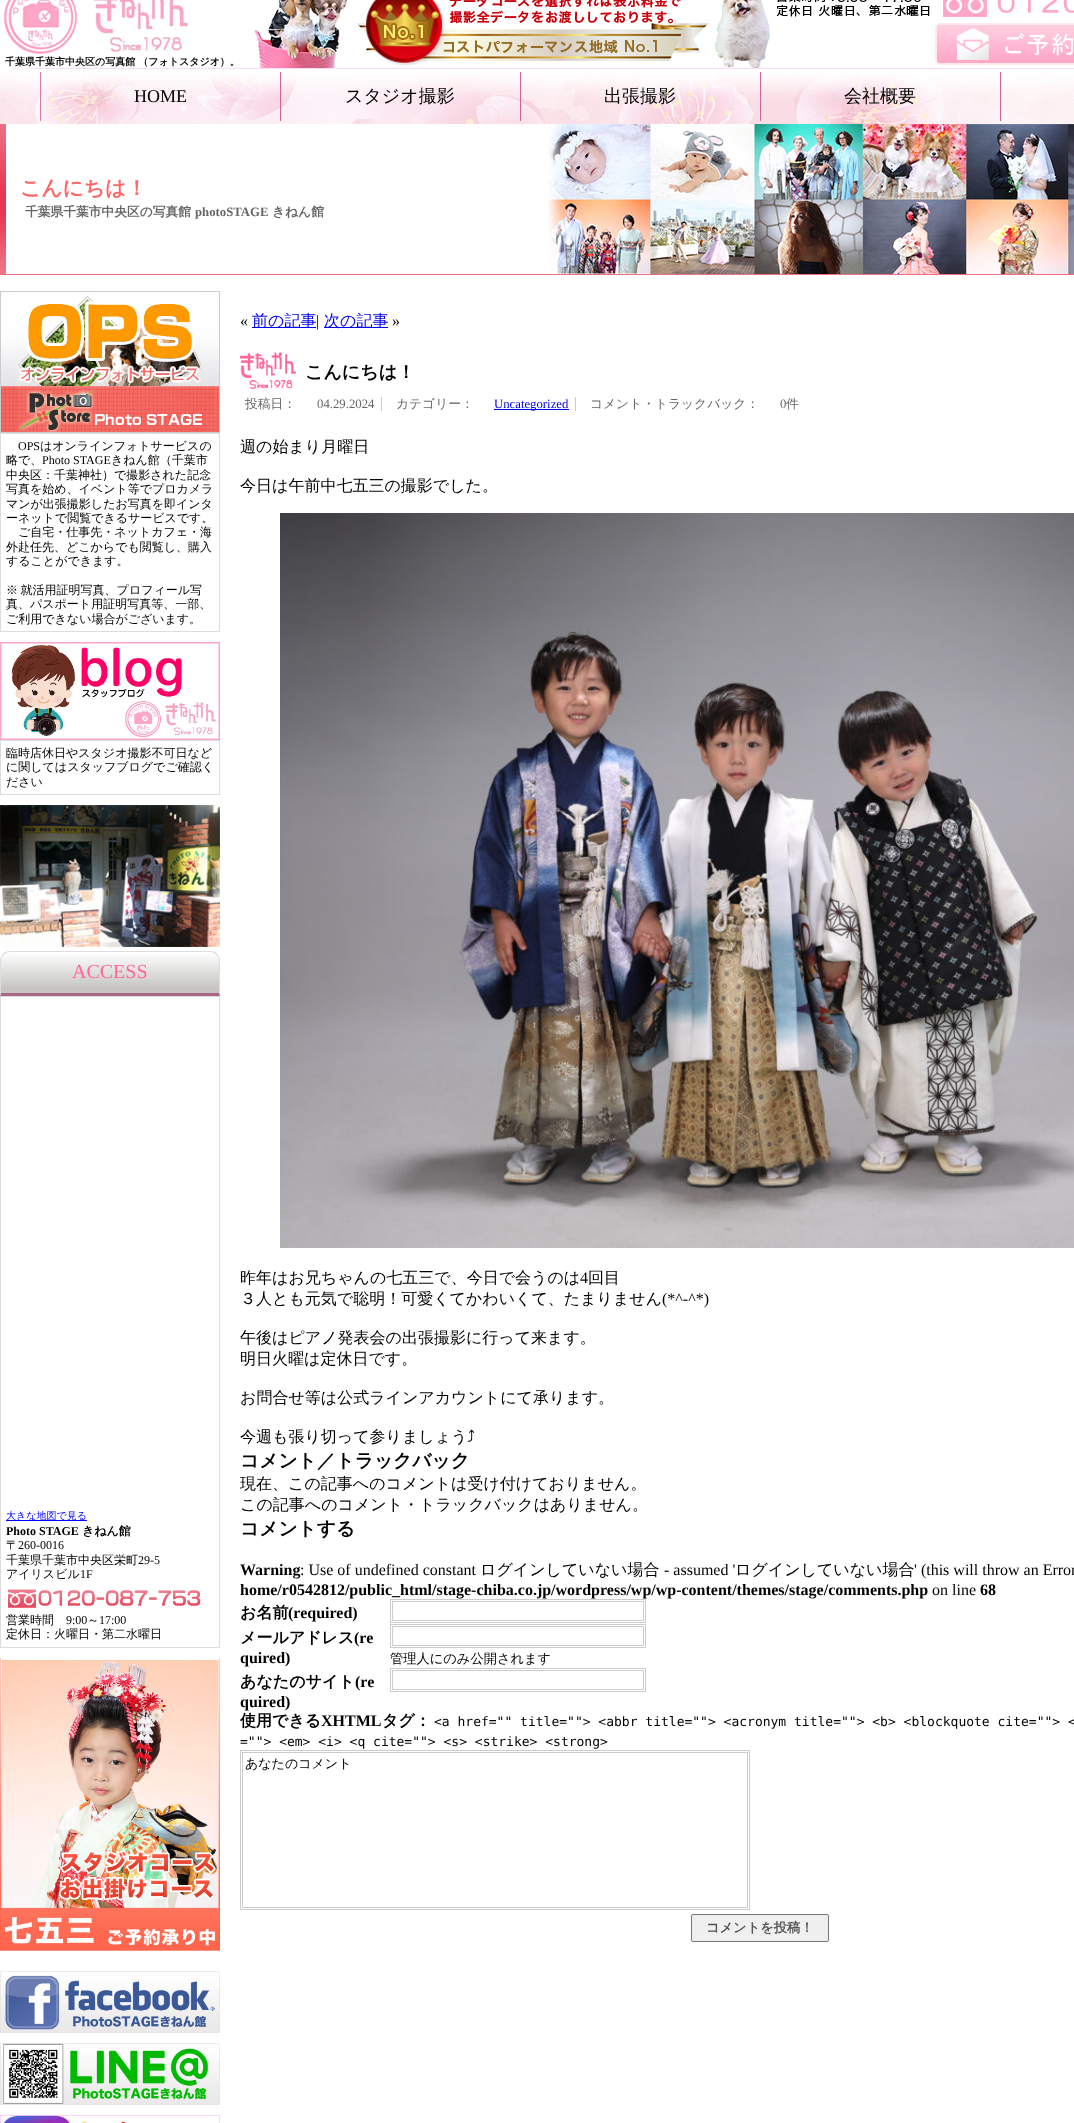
async function draw(canvas) {
  canvas.width = 1074;
  canvas.height = 2123;
  const ctx = canvas.getContext('2d');
  ctx.miterLimit = 4;
  ctx.fontKerning = 'normal';
  function label(s, x, y, font, color) {
    ctx.font = font;
    ctx.fillStyle = color;
    ctx.fillText(s, x, y);
  }
  function rect(x, y, w, h, color) {
    ctx.fillStyle = color;
    ctx.fillRect(x, y, w, h);
  }
  async function image(src, x, y, w, h) {
    const img = new Image();
    img.src = src;
    await img.decode();
    ctx.drawImage(img, x, y, w, h);
  }
  let gradient, path;

  rect(0, 0, 1074, 2123, '#fff');
  await image('assets/img1.png', 254, 0, 820, 68);
  await image('assets/img2.png', 4, 0, 184, 54);
  await image('assets/img3.png', 935, 23, 139, 42);
  label('千葉県千葉市中央区の写真館 （フォトスタジオ）。', 5, 65, 'bold 10px WenQuanYi Zen Hei', '#000');
  await image('assets/img4.png', 0, 68, 50, 56);
  await image('assets/img5.png', 10, 68, 1064, 56);
  label('HOME', 134, 102, '18px Liberation Serif', '#000');
  label('スタジオ撮影', 345, 102, '500 18px WenQuanYi Zen Hei', '#000');
  label('出張撮影', 604, 102, '500 18px WenQuanYi Zen Hei', '#000');
  label('会社概要', 844, 102, '500 18px WenQuanYi Zen Hei', '#000');
  await image('assets/img6.png', 0, 124, 1074, 151);
  label('こんにちは！', 20, 195, 'bold 20.75px WenQuanYi Zen Hei', '#f66');
  label('千葉県千葉市中央区の写真館', 25, 216, 'bold 12.75px WenQuanYi Zen Hei', '#666');
  label('photoSTAGE', 195, 216, 'bold 12.75px Liberation Serif', '#666');
  label('きねん館', 272, 216, 'bold 12.75px WenQuanYi Zen Hei', '#666');
  await image('assets/img7.png', 0, 291, 220, 142);
  ctx.strokeStyle = '#ddd';
  ctx.strokeRect(0.5, 433.5, 219, 198);
  label('OPS', 18, 450, '12px Liberation Serif', '#000');
  label('はオンラインフォトサービスの', 40, 450, '500 12px WenQuanYi Zen Hei', '#000');
  label('略で、', 6, 464, '500 12px WenQuanYi Zen Hei', '#000');
  label('Photo STAGE', 42, 464, '12px Liberation Serif', '#000');
  label('きねん館（千葉市', 111, 464, '500 12px WenQuanYi Zen Hei', '#000');
  label('中央区：千葉神社）で撮影された記念', 6, 479, '500 12px WenQuanYi Zen Hei', '#000');
  label('写真を始め、イベント等でプロカメラ', 6, 493, '500 12px WenQuanYi Zen Hei', '#000');
  label('マンが出張撮影したお写真を即インタ', 6, 508, '500 12px WenQuanYi Zen Hei', '#000');
  label('ーネットで閲覧できるサービスです。', 6, 522, '500 12px WenQuanYi Zen Hei', '#000');
  label('ご自宅・仕事先・ネットカフェ・海', 18, 536, '500 12px WenQuanYi Zen Hei', '#000');
  label('外赴任先、どこからでも閲覧し、購入', 6, 551, '500 12px WenQuanYi Zen Hei', '#000');
  label('することができます。', 6, 565, '500 12px WenQuanYi Zen Hei', '#000');
  ctx.wordSpacing = '-1px';
  label('※ 就活用証明写真、プロフィール写', 6, 594, '500 12px WenQuanYi Zen Hei', '#000');
  ctx.wordSpacing = '0px';
  label('真、パスポート用証明写真等、一部、', 6, 608, '500 12px WenQuanYi Zen Hei', '#000');
  label('ご利用できない場合がございます。', 6, 623, '500 12px WenQuanYi Zen Hei', '#000');
  await image('assets/img8.png', 0, 642, 220, 98);
  ctx.strokeRect(0.5, 740.5, 219, 54);
  label('臨時店休日やスタジオ撮影不可日など', 6, 757, '500 12px WenQuanYi Zen Hei', '#000');
  label('に関してはスタッフブログでご確認く', 6, 771, '500 12px WenQuanYi Zen Hei', '#000');
  label('ださい', 6, 786, '500 12px WenQuanYi Zen Hei', '#000');
  await image('assets/img9.png', 0, 805, 220, 142);
  ctx.save();
  ctx.beginPath();
  ctx.roundRect(0, 951, 220, 45, [10, 10, 0, 0]);
  ctx.clip();
  gradient = ctx.createLinearGradient(110, 952, 110, 993);
  gradient.addColorStop(0, '#fff');
  gradient.addColorStop(0.88, '#c6c5c3');
  ctx.fillStyle = gradient;
  ctx.fillRect(0, 952, 220, 41);
  ctx.restore();
  ctx.fillStyle = '#ddd';
  path = new Path2D('M10 951C7 951 4 952 3 954L4 955C5 953 8 952 10 952H210C212 952 215 953 216 955L217 954C216 952 213 951 210 951Z');
  ctx.fill(path);
  path = new Path2D('M220 996V961C220 958 219 956 217 954L216 955C218 956 219 958 219 961V993Z');
  ctx.fill(path);
  ctx.fillStyle = '#a68';
  path = new Path2D('M220 996L219 993H1L0 996Z');
  ctx.fill(path);
  ctx.fillStyle = '#ddd';
  path = new Path2D('M0 996L1 993V961C1 958 2 956 4 955L3 954C1 956 0 958 0 961Z');
  ctx.fill(path);
  label('ACCESS', 72, 978, '20px Liberation Serif', '#f69');
  ctx.strokeRect(0.5, 996.5, 219, 651);
  rect(6, 1520, 81, 1, '#00f');
  label('大きな地図で見る', 6, 1519, '500 10px WenQuanYi Zen Hei', '#00f');
  label('Photo STAGE', 6, 1535, 'bold 12px Liberation Serif', '#000');
  label('きねん館', 82, 1535, 'bold 12px WenQuanYi Zen Hei', '#000');
  label('〒', 6, 1549, '500 12px WenQuanYi Zen Hei', '#000');
  label('260-0016', 18, 1549, '12px Liberation Serif', '#000');
  label('千葉県千葉市中央区栄町', 6, 1564, '500 12px WenQuanYi Zen Hei', '#000');
  label('29-5', 138, 1564, '12px Liberation Serif', '#000');
  label('アイリスビル', 6, 1578, '500 12px WenQuanYi Zen Hei', '#000');
  label('1F', 80, 1578, '12px Liberation Serif', '#000');
  await image('assets/img10.png', 8, 1589, 193, 19);
  label('営業時間', 6, 1624, '500 12px WenQuanYi Zen Hei', '#000');
  label('9:00', 66, 1624, '12px Liberation Serif', '#000');
  label('～', 87, 1624, '500 12px WenQuanYi Zen Hei', '#000');
  label('17:00', 99, 1624, '12px Liberation Serif', '#000');
  label('定休日：火曜日・第二水曜日', 6, 1638, '500 12px WenQuanYi Zen Hei', '#000');
  await image('assets/img11.png', 0, 1658, 220, 293);
  await image('assets/img12.png', 0, 1971, 220, 62);
  await image('assets/img13.png', 0, 2043, 220, 62);
  await image('assets/img14.png', 0, 2115, 220, 8);
  label('«', 240, 326, '16px Liberation Serif', '#000');
  rect(252, 327, 64, 1, '#00e');
  label('前の記事', 252, 326, '500 16px WenQuanYi Zen Hei', '#00e');
  label('|', 316, 326, '16px Liberation Serif', '#000');
  rect(324, 327, 64, 1, '#00e');
  label('次の記事', 324, 326, '500 16px WenQuanYi Zen Hei', '#00e');
  label('»', 392, 326, '16px Liberation Serif', '#000');
  await image('assets/img15.png', 240, 352, 56, 37);
  label('こんにちは！', 305, 378, 'bold 18px WenQuanYi Zen Hei', '#000');
  label('投稿日：', 245, 408, '500 12.75px WenQuanYi Zen Hei', '#666');
  label('04.29.2024', 317, 408, '12.75px Liberation Serif', '#666');
  rect(381, 397, 1, 14, '#ccc');
  label('カテゴリー：', 396, 408, '500 12.75px WenQuanYi Zen Hei', '#666');
  rect(494, 409, 75, 1, '#00e');
  label('Uncategorized', 494, 408, '12.75px Liberation Serif', '#00e');
  rect(575, 397, 1, 14, '#ccc');
  label('コメント・トラックバック：', 590, 408, '500 12.75px WenQuanYi Zen Hei', '#666');
  label('0', 780, 408, '12.75px Liberation Serif', '#666');
  label('件', 786, 408, '500 12.75px WenQuanYi Zen Hei', '#666');
  label('週の始まり月曜日', 240, 452, '500 16px WenQuanYi Zen Hei', '#000');
  label('今日は午前中七五三の撮影でした。', 240, 491, '500 16px WenQuanYi Zen Hei', '#000');
  await image('assets/img16.png', 280, 513, 794, 735);
  label('昨年はお兄ちゃんの七五三で、今日で会うのは', 240, 1283, '500 16px WenQuanYi Zen Hei', '#000');
  label('4', 580, 1283, '16px Liberation Serif', '#000');
  label('回目', 588, 1283, '500 16px WenQuanYi Zen Hei', '#000');
  label('３人とも元気で聡明！可愛くてかわいくて、たまりません', 240, 1304, '500 16px WenQuanYi Zen Hei', '#000');
  label('(*^-^*)', 662, 1304, '16px Liberation Serif', '#000');
  label('午後はピアノ発表会の出張撮影に行って来ます。', 240, 1343, '500 16px WenQuanYi Zen Hei', '#000');
  label('明日火曜は定休日です。', 240, 1364, '500 16px WenQuanYi Zen Hei', '#000');
  label('お問合せ等は公式ラインアカウントにて承ります。', 240, 1403, '500 16px WenQuanYi Zen Hei', '#000');
  label('今週も張り切って参りましょう', 240, 1442, '500 16px WenQuanYi Zen Hei', '#000');
  label('⤴', 467, 1442, '16px IPAPGothic', '#000');
  label('コメント／トラックバック', 240, 1467, 'bold 18.75px WenQuanYi Zen Hei', '#000');
  label('現在、この記事へのコメントは受け付けておりません。', 240, 1489, '500 16px WenQuanYi Zen Hei', '#000');
  label('この記事へのコメント・トラックバックはありません。', 240, 1510, '500 16px WenQuanYi Zen Hei', '#000');
  label('コメントする', 240, 1535, 'bold 18.75px WenQuanYi Zen Hei', '#000');
  label('Warning', 240, 1575, 'bold 16px Liberation Serif', '#000');
  label(': Use of undefined constant', 300, 1575, '16px Liberation Serif', '#000');
  label('ログインしていない場合', 480, 1575, '500 16px WenQuanYi Zen Hei', '#000');
  label('- assumed \'', 664, 1575, '16px Liberation Serif', '#000');
  label('ログインしていない場合', 735, 1575, '500 16px WenQuanYi Zen Hei', '#000');
  label('\' (this will throw an Error', 914, 1575, '16px Liberation Serif', '#000');
  label('home/r0542812/public_html/stage-chiba.co.jp/wordpress/wp/wp-content/themes/stage/comments.php', 240, 1595, 'bold 16px Liberation Serif', '#000');
  label('on line', 932, 1595, '16px Liberation Serif', '#000');
  label('68', 980, 1595, 'bold 16px Liberation Serif', '#000');
  label('お名前', 240, 1618, 'bold 16px WenQuanYi Zen Hei', '#000');
  label('(required)', 288, 1618, 'bold 16px Liberation Serif', '#000');
  ctx.strokeStyle = '#ccc';
  ctx.strokeRect(390.5, 1599.5, 255, 23);
  ctx.strokeRect(392.5, 1601.5, 251, 19);
  label('メールアドレス', 240, 1643, 'bold 16px WenQuanYi Zen Hei', '#000');
  label('(re', 354, 1643, 'bold 16px Liberation Serif', '#000');
  label('quired)', 240, 1663, 'bold 16px Liberation Serif', '#000');
  ctx.strokeRect(390.5, 1624.5, 255, 23);
  ctx.strokeRect(392.5, 1626.5, 251, 19);
  label('管理人にのみ公開されます', 390, 1663, '500 13.25px WenQuanYi Zen Hei', '#000');
  label('あなたのサイト', 240, 1687, 'bold 16px WenQuanYi Zen Hei', '#000');
  label('(re', 355, 1687, 'bold 16px Liberation Serif', '#000');
  label('quired)', 240, 1707, 'bold 16px Liberation Serif', '#000');
  ctx.strokeRect(390.5, 1668.5, 255, 23);
  ctx.strokeRect(392.5, 1670.5, 251, 19);
  label('使用できる', 240, 1726, 'bold 16px WenQuanYi Zen Hei', '#000');
  label('XHTML', 321, 1726, 'bold 16px Liberation Serif', '#000');
  label('タグ：', 382, 1726, 'bold 16px WenQuanYi Zen Hei', '#000');
  label('<a href="" title=""> <abbr title=""> <acronym title=""> <b> <blockquote cite=""> <', 434, 1726, '13px DejaVu Sans Mono', '#000');
  label('=""> <em> <i> <q cite=""> <s> <strike> <strong>', 240, 1746, '13px DejaVu Sans Mono', '#000');
  ctx.strokeRect(240.5, 1750.5, 509, 159);
  ctx.strokeRect(242.5, 1752.5, 505, 155);
  label('あなたのコメント', 245, 1768, '500 13px WenQuanYi Zen Hei', '#000');
  ctx.fillStyle = '#efefef';
  ctx.beginPath();
  ctx.roundRect(691.5, 1914.5, 137, 27, 1.5);
  ctx.fill();
  ctx.strokeStyle = '#767676';
  ctx.stroke();
  label('コメントを投稿！', 706, 1932, 'bold 13.25px WenQuanYi Zen Hei', '#555');
}

draw(document.querySelector('canvas'));
